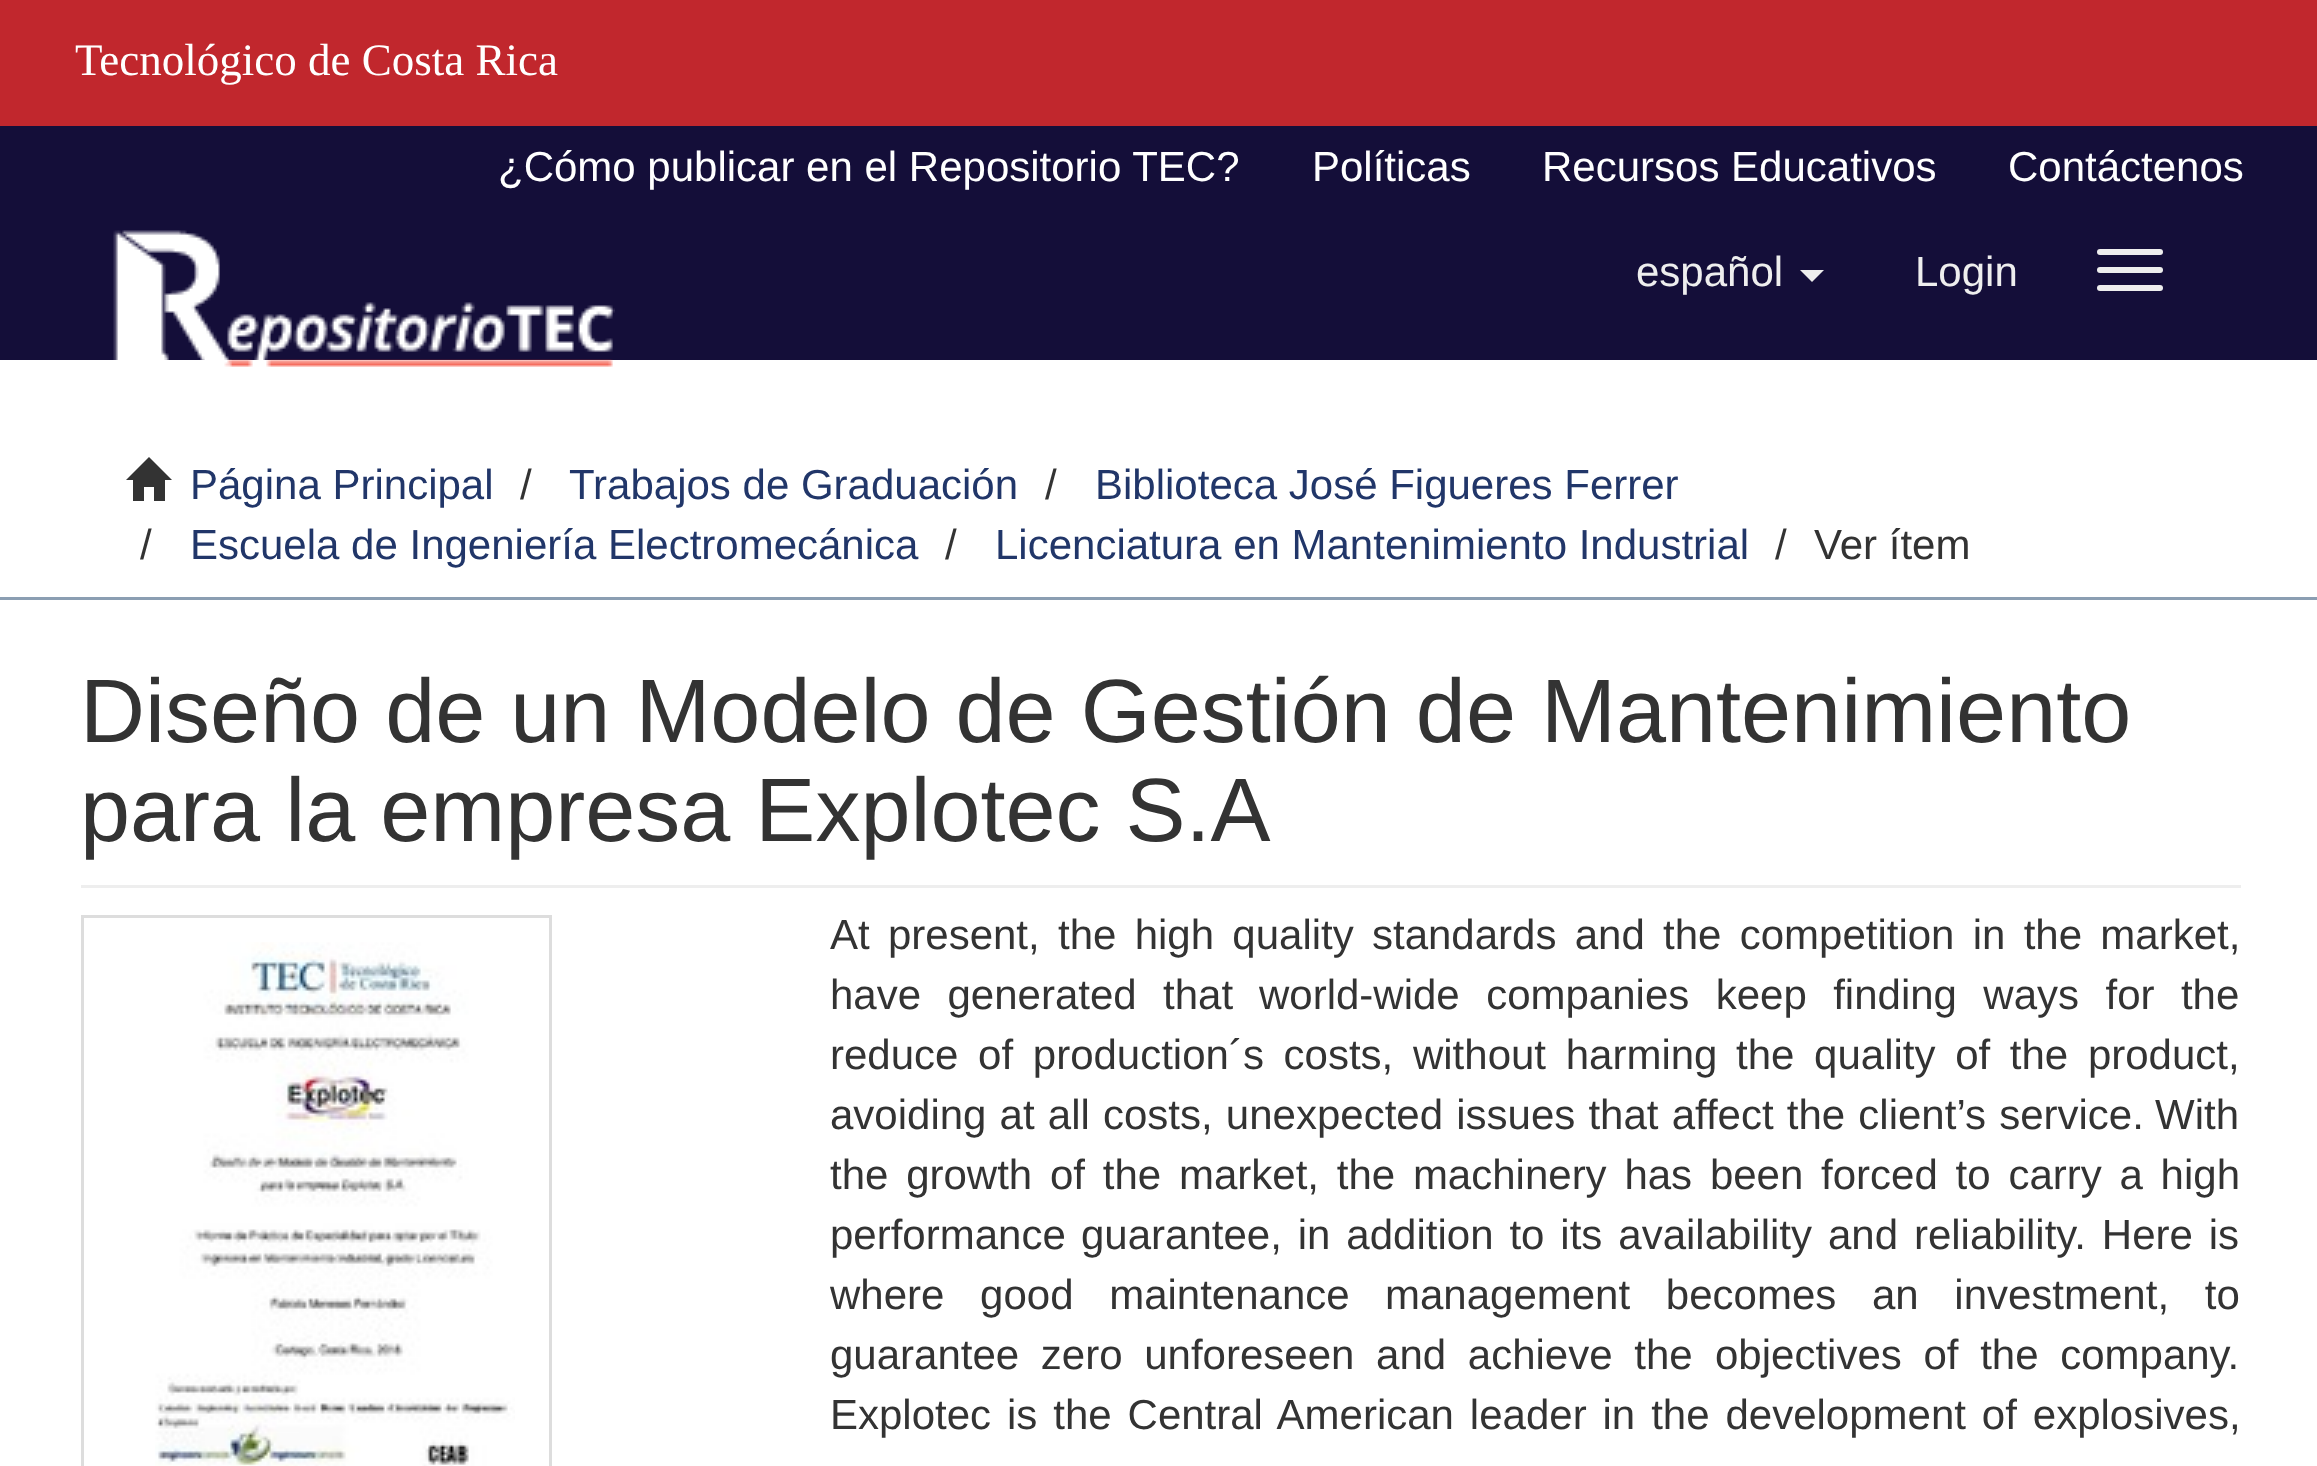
async function draw(canvas) {
  canvas.width = 2317;
  canvas.height = 1466;
  const ctx = canvas.getContext('2d');
  ctx.miterLimit = 4;
  ctx.fontKerning = 'normal';
  function label(s, x, y, font, color) {
    ctx.font = font;
    ctx.fillStyle = color;
    ctx.fillText(s, x, y);
  }
  function rect(x, y, w, h, color) {
    ctx.fillStyle = color;
    ctx.fillRect(x, y, w, h);
  }
  function roundedRect(x, y, w, h, r, color) {
    ctx.fillStyle = color;
    ctx.beginPath();
    ctx.roundRect(x, y, w, h, r);
    ctx.fill();
  }
  async function image(src, x, y, w, h) {
    const img = new Image();
    img.src = src;
    await img.decode();
    ctx.drawImage(img, x, y, w, h);
  }
  let path;

  rect(0, 0, 2317, 1466, '#fff');
  rect(0, 126, 2317, 234, '#140e39');
  rect(0, 0, 2317, 126, '#c1272d');
  label('Tecnológico de Costa Rica', 75, 75, '45px Liberation Serif', '#fff');
  label('¿Cómo publicar en el Repositorio TEC?', 498, 181, '42px Liberation Sans', '#fff');
  label('Políticas', 1312, 181, '42px Liberation Sans', '#fff');
  label('Recursos Educativos', 1542, 181, '42px Liberation Sans', '#fff');
  label('Contáctenos', 2008, 181, '42px Liberation Sans', '#fff');
  await image('assets/img1.png', 113, 230, 502, 137);
  label('español', 1636, 286, '42px Liberation Sans', '#eee');
  path = new Path2D('M1800 270H1824L1812 282Z');
  ctx.fill(path);
  label('Login', 1915, 286, '42px Liberation Sans', '#eee');
  roundedRect(2097, 249, 66, 6, 3, '#eee');
  roundedRect(2097, 267, 66, 6, 3, '#eee');
  roundedRect(2097, 285, 66, 6, 3, '#eee');
  rect(0, 597, 2317, 3, '#8b9eb2');
  ctx.fillStyle = '#333';
  path = new Path2D('M126 480L149 457L172 480H165V501H154V487H144V501H133V480Z');
  ctx.fill(path);
  label('Página Principal', 190, 499, '42px Liberation Sans', '#213669');
  label('/', 520, 499, '42px Liberation Sans', '#333');
  label('Trabajos de Graduación', 569, 499, '42px Liberation Sans', '#213669');
  label('/', 1045, 499, '42px Liberation Sans', '#333');
  label('Biblioteca José Figueres Ferrer', 1095, 499, '42px Liberation Sans', '#213669');
  label('/', 140, 559, '42px Liberation Sans', '#333');
  label('Escuela de Ingeniería Electromecánica', 190, 559, '42px Liberation Sans', '#213669');
  label('/', 945, 559, '42px Liberation Sans', '#333');
  label('Licenciatura en Mantenimiento Industrial', 995, 559, '42px Liberation Sans', '#213669');
  label('/', 1775, 559, '42px Liberation Sans', '#333');
  label('Ver ítem', 1814, 559, '42px Liberation Sans', '#333');
  rect(81, 885, 2160, 3, '#eee');
  label('Diseño de un Modelo de Gestión de Mantenimiento', 80, 742, '90px Liberation Sans', '#333');
  label('para la empresa Explotec S.A', 80, 841, '90px Liberation Sans', '#333');
  ctx.strokeStyle = '#ddd';
  ctx.lineWidth = 3;
  ctx.strokeRect(82.5, 916.5, 468, 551);
  await image('assets/img2.png', 155, 942, 360, 524);
  ctx.wordSpacing = '6.6px';
  label('At present, the high quality standards and the competition in the market,', 830, 949, '42px Liberation Sans', '#333');
  ctx.wordSpacing = '14.75px';
  label('have generated that', 830, 1009, '42px Liberation Sans', '#333');
  label('world-wide companies keep finding ways for the', 1259, 1009, '42px Liberation Sans', '#333');
  ctx.wordSpacing = '8px';
  label('reduce of production´s costs, without harming', 830, 1069, '42px Liberation Sans', '#333');
  label('the quality of the product,', 1736, 1069, '42px Liberation Sans', '#333');
  ctx.wordSpacing = '1.5px';
  label('avoiding at all costs, unexpected issues that affect the client’s service.', 830, 1129, '42px Liberation Sans', '#333');
  ctx.wordSpacing = '0px';
  label('With', 2155, 1129, '42px Liberation Sans', '#333');
  ctx.wordSpacing = '6.1px';
  label('the growth of the market, the machinery has been forced to carry a high', 830, 1189, '42px Liberation Sans', '#333');
  ctx.wordSpacing = '0px';
  label('performance', 830, 1249, '42px Liberation Sans', '#333');
  ctx.wordSpacing = '4.25px';
  label('guarantee, in addition to its availability and reliability. Here is', 1081, 1249, '42px Liberation Sans', '#333');
  ctx.wordSpacing = '24px';
  label('where good maintenance', 830, 1309, '42px Liberation Sans', '#333');
  label('management becomes an investment, to', 1385, 1309, '42px Liberation Sans', '#333');
  ctx.wordSpacing = '10px';
  label('guarantee zero unforeseen and achieve the', 830, 1369, '42px Liberation Sans', '#333');
  label('objectives of the company.', 1715, 1369, '42px Liberation Sans', '#333');
  ctx.wordSpacing = '4.25px';
  label('Explotec is the Central American leader in the development of explosives,', 830, 1429, '42px Liberation Sans', '#333');
}

draw(document.querySelector('canvas'));
